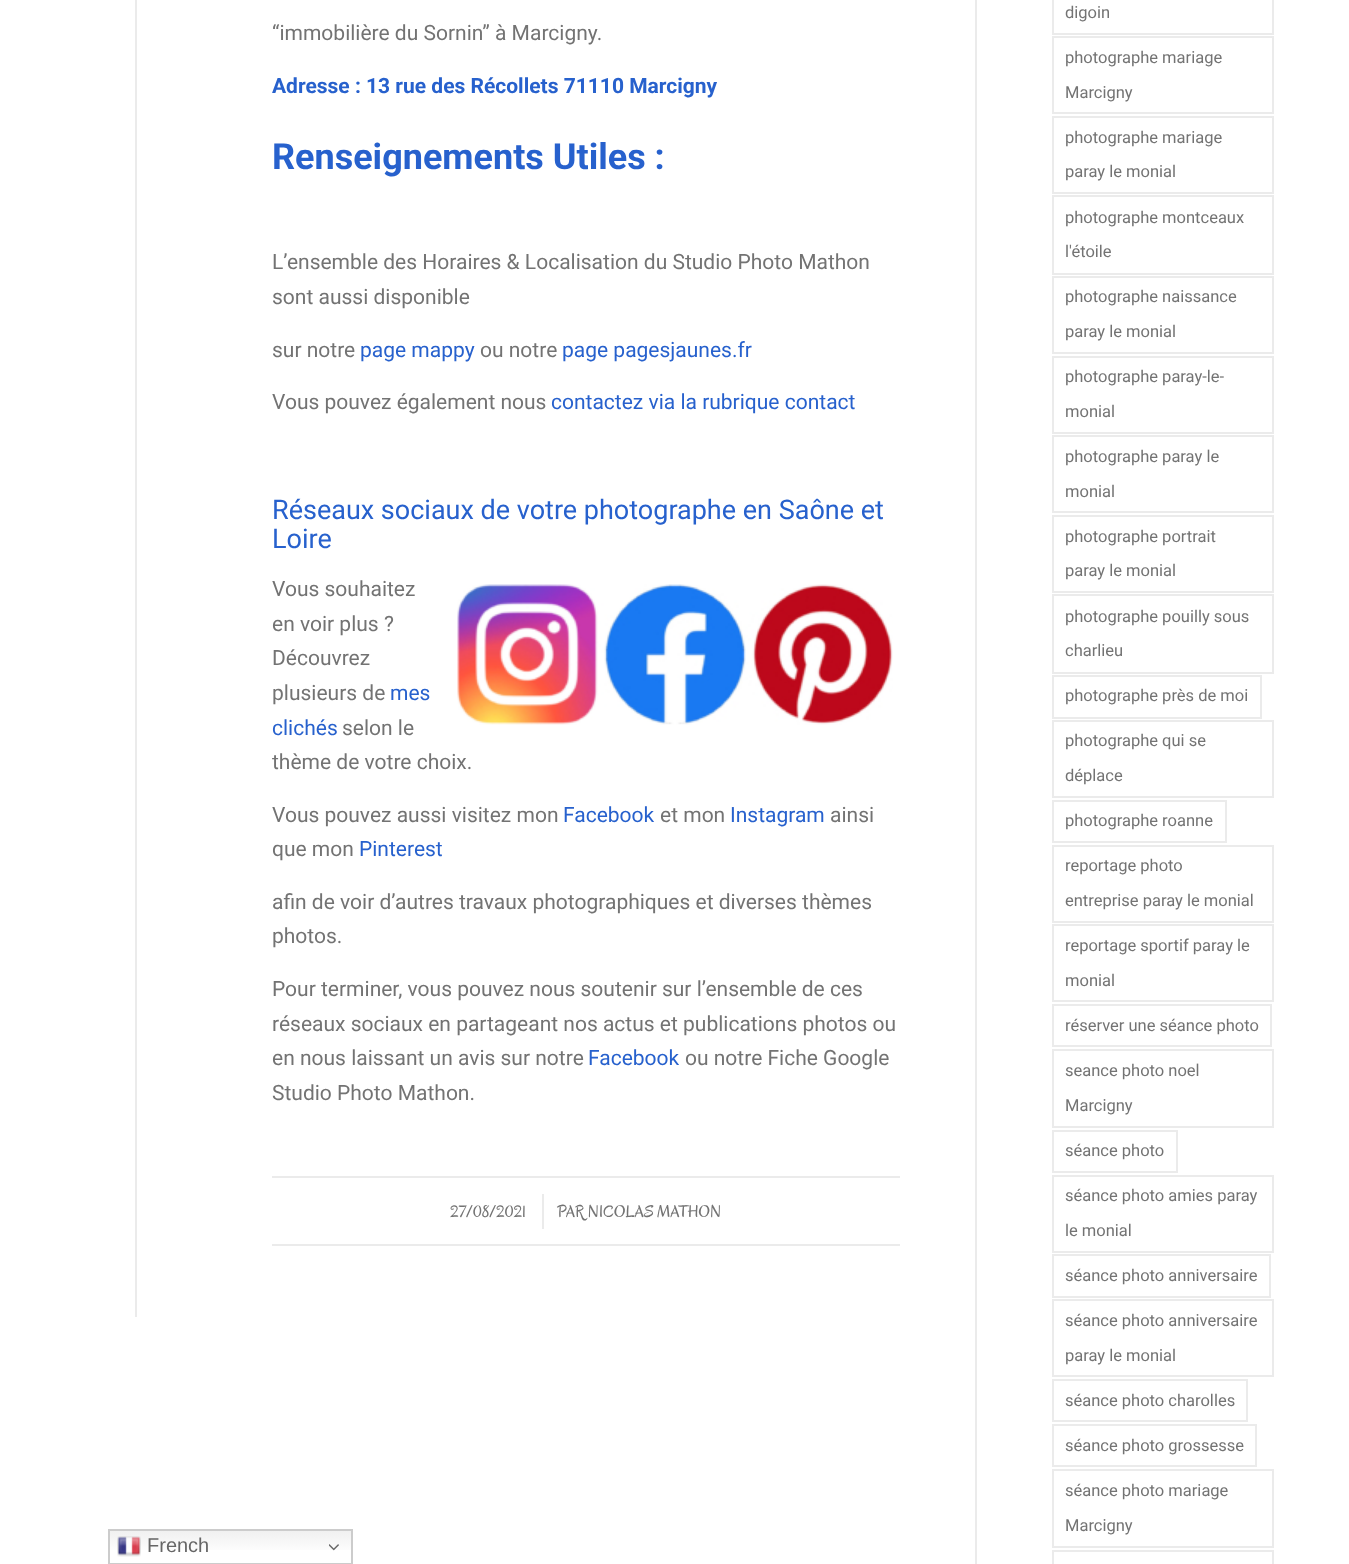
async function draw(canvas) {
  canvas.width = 1349;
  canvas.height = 1564;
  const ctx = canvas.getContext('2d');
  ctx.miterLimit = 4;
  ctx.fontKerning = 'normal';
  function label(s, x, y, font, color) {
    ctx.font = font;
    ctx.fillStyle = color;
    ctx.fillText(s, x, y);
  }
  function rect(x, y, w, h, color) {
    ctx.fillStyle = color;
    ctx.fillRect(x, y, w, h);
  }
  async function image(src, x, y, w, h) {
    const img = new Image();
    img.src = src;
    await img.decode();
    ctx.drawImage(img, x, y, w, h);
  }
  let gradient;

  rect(0, 0, 1349, 1564, '#fff');
  rect(135, 0, 2, 1317, '#ebebeb');
  label('“immobilière du Sornin” à Marcigny.', 272, 40, '21px Roboto', '#737373');
  label('Adresse : 13 rue des Récollets 71110 Marcigny', 272, 93, 'bold 21px Roboto', '#2761cd');
  label('Renseignements Utiles :', 272, 169, 'bold 36px Roboto', '#2761cd');
  label('L’ensemble des Horaires & Localisation du Studio Photo Mathon', 272, 269, '21px Roboto', '#737373');
  label('sont aussi disponible', 272, 304, '21px Roboto', '#737373');
  label('sur notre', 272, 357, '21px Roboto', '#737373');
  label('page mappy', 360, 357, '21px Roboto', '#2761cd');
  label('ou notre', 480, 357, '21px Roboto', '#737373');
  label('page pagesjaunes.fr', 562, 357, '21px Roboto', '#2761cd');
  label('Vous pouvez également nous', 272, 409, '21px Roboto', '#737373');
  label('contactez via la rubrique contact', 551, 409, '21px Roboto', '#2761cd');
  label('Réseaux sociaux de votre photographe en Saône et', 272, 519, '27px Roboto', '#2761cd');
  label('Loire', 272, 548, '27px Roboto', '#2761cd');
  label('Vous souhaitez', 272, 596, '21px Roboto', '#737373');
  await image('assets/img1.png', 457, 584, 436, 141);
  label('en voir plus ?', 272, 631, '21px Roboto', '#737373');
  label('Découvrez', 272, 665, '21px Roboto', '#737373');
  label('plusieurs de', 272, 700, '21px Roboto', '#737373');
  label('mes', 390, 700, '21px Roboto', '#2761cd');
  label('clichés', 272, 735, '21px Roboto', '#2761cd');
  label('selon le', 342, 735, '21px Roboto', '#737373');
  label('thème de votre choix.', 272, 769, '21px Roboto', '#737373');
  label('Vous pouvez aussi visitez mon', 272, 822, '21px Roboto', '#737373');
  label('Facebook', 563, 822, '21px Roboto', '#2761cd');
  label('et mon', 660, 822, '21px Roboto', '#737373');
  label('Instagram', 730, 822, '21px Roboto', '#2761cd');
  label('ainsi', 830, 822, '21px Roboto', '#737373');
  label('que mon', 272, 856, '21px Roboto', '#737373');
  label('Pinterest', 359, 856, '21px Roboto', '#2761cd');
  label('afin de voir d’autres travaux photographiques et diverses thèmes', 272, 909, '21px Roboto', '#737373');
  label('photos.', 272, 943, '21px Roboto', '#737373');
  label('Pour terminer, vous pouvez nous soutenir sur l’ensemble de ces', 272, 996, '21px Roboto', '#737373');
  label('réseaux sociaux en partageant nos actus et publications photos ou', 272, 1031, '21px Roboto', '#737373');
  label('en nous laissant un avis sur notre', 272, 1065, '21px Roboto', '#737373');
  label('Facebook', 588, 1065, '21px Roboto', '#2761cd');
  label('ou notre Fiche Google', 685, 1065, '21px Roboto', '#737373');
  label('Studio Photo Mathon.', 272, 1100, '21px Roboto', '#737373');
  rect(272, 1176, 628, 2, '#ebebeb');
  rect(272, 1244, 628, 2, '#ebebeb');
  label('27/08/2021', 450, 1217, '17px Oregano', '#737373');
  rect(542, 1194, 2, 35, '#ebebeb');
  label('PAR NICOLAS MATHON', 557, 1217, '17px Oregano', '#737373');
  rect(975, 0, 2, 1564, '#ebebeb');
  ctx.strokeStyle = '#ebebeb';
  ctx.lineWidth = 2;
  ctx.strokeRect(1053, -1, 220, 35);
  label('digoin', 1065, 18, '16.5px Roboto', '#737373');
  ctx.strokeRect(1053, 37, 220, 76);
  label('photographe mariage', 1065, 63, '16.5px Roboto', '#737373');
  label('Marcigny', 1065, 98, '16.5px Roboto', '#737373');
  ctx.strokeRect(1053, 117, 220, 76);
  label('photographe mariage', 1065, 143, '16.5px Roboto', '#737373');
  label('paray le monial', 1065, 177, '16.5px Roboto', '#737373');
  ctx.strokeRect(1053, 196, 220, 78);
  label('photographe montceaux', 1065, 223, '16.5px Roboto', '#737373');
  label('l\'étoile', 1065, 257, '16.5px Roboto', '#737373');
  ctx.strokeRect(1053, 277, 220, 76);
  label('photographe naissance', 1065, 302, '16.5px Roboto', '#737373');
  label('paray le monial', 1065, 337, '16.5px Roboto', '#737373');
  ctx.strokeRect(1053, 357, 220, 76);
  label('photographe paray-le-', 1065, 382, '16.5px Roboto', '#737373');
  label('monial', 1065, 417, '16.5px Roboto', '#737373');
  ctx.strokeRect(1053, 436, 220, 76);
  label('photographe paray le', 1065, 462, '16.5px Roboto', '#737373');
  label('monial', 1065, 497, '16.5px Roboto', '#737373');
  ctx.strokeRect(1053, 516, 220, 76);
  label('photographe portrait', 1065, 542, '16.5px Roboto', '#737373');
  label('paray le monial', 1065, 576, '16.5px Roboto', '#737373');
  ctx.strokeRect(1053, 595, 220, 78);
  label('photographe pouilly sous', 1065, 622, '16.5px Roboto', '#737373');
  label('charlieu', 1065, 656, '16.5px Roboto', '#737373');
  ctx.strokeRect(1053, 676, 208, 42);
  label('photographe près de moi', 1065, 701, '16.5px Roboto', '#737373');
  ctx.strokeRect(1053, 721, 220, 76);
  label('photographe qui se', 1065, 746, '16.5px Roboto', '#737373');
  label('déplace', 1065, 781, '16.5px Roboto', '#737373');
  ctx.strokeRect(1053, 801, 173, 41);
  label('photographe roanne', 1065, 826, '16.5px Roboto', '#737373');
  ctx.strokeRect(1053, 846, 220, 76);
  label('reportage photo', 1065, 871, '16.5px Roboto', '#737373');
  label('entreprise paray le monial', 1065, 906, '16.5px Roboto', '#737373');
  ctx.strokeRect(1053, 925, 220, 76);
  label('reportage sportif paray le', 1065, 951, '16.5px Roboto', '#737373');
  label('monial', 1065, 986, '16.5px Roboto', '#737373');
  ctx.strokeRect(1053, 1005, 218, 41);
  label('réserver une séance photo', 1065, 1031, '16.5px Roboto', '#737373');
  ctx.strokeRect(1053, 1050, 220, 77);
  label('seance photo noel', 1065, 1076, '16.5px Roboto', '#737373');
  label('Marcigny', 1065, 1111, '16.5px Roboto', '#737373');
  ctx.strokeRect(1053, 1131, 124, 41);
  label('séance photo', 1065, 1156, '16.5px Roboto', '#737373');
  ctx.strokeRect(1053, 1176, 220, 76);
  label('séance photo amies paray', 1065, 1201, '16.5px Roboto', '#737373');
  label('le monial', 1065, 1236, '16.5px Roboto', '#737373');
  ctx.strokeRect(1053, 1255, 217, 42);
  label('séance photo anniversaire', 1065, 1281, '16.5px Roboto', '#737373');
  ctx.strokeRect(1053, 1300, 220, 76);
  label('séance photo anniversaire', 1065, 1326, '16.5px Roboto', '#737373');
  label('paray le monial', 1065, 1361, '16.5px Roboto', '#737373');
  ctx.strokeRect(1053, 1380, 194, 41);
  label('séance photo charolles', 1065, 1406, '16.5px Roboto', '#737373');
  ctx.strokeRect(1053, 1425, 203, 41);
  label('séance photo grossesse', 1065, 1451, '16.5px Roboto', '#737373');
  ctx.strokeRect(1053, 1470, 220, 77);
  label('séance photo mariage', 1065, 1496, '16.5px Roboto', '#737373');
  label('Marcigny', 1065, 1531, '16.5px Roboto', '#737373');
  ctx.strokeRect(1053, 1551, 220, 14);
  gradient = ctx.createLinearGradient(230, 1529, 230, 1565);
  gradient.addColorStop(0, '#efefef');
  gradient.addColorStop(0.7, '#fff');
  ctx.fillStyle = gradient;
  ctx.fillRect(110, 1531, 241, 19);
  ctx.strokeStyle = '#ccc';
  ctx.strokeRect(109, 1530, 243, 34);
  await image('assets/img2.png', 117, 1536, 24, 21);
  label('French', 147, 1552, '20px Liberation Sans', '#666');
  await image('assets/img3.png', 329, 1544, 10, 7);
}

draw(document.querySelector('canvas'));
